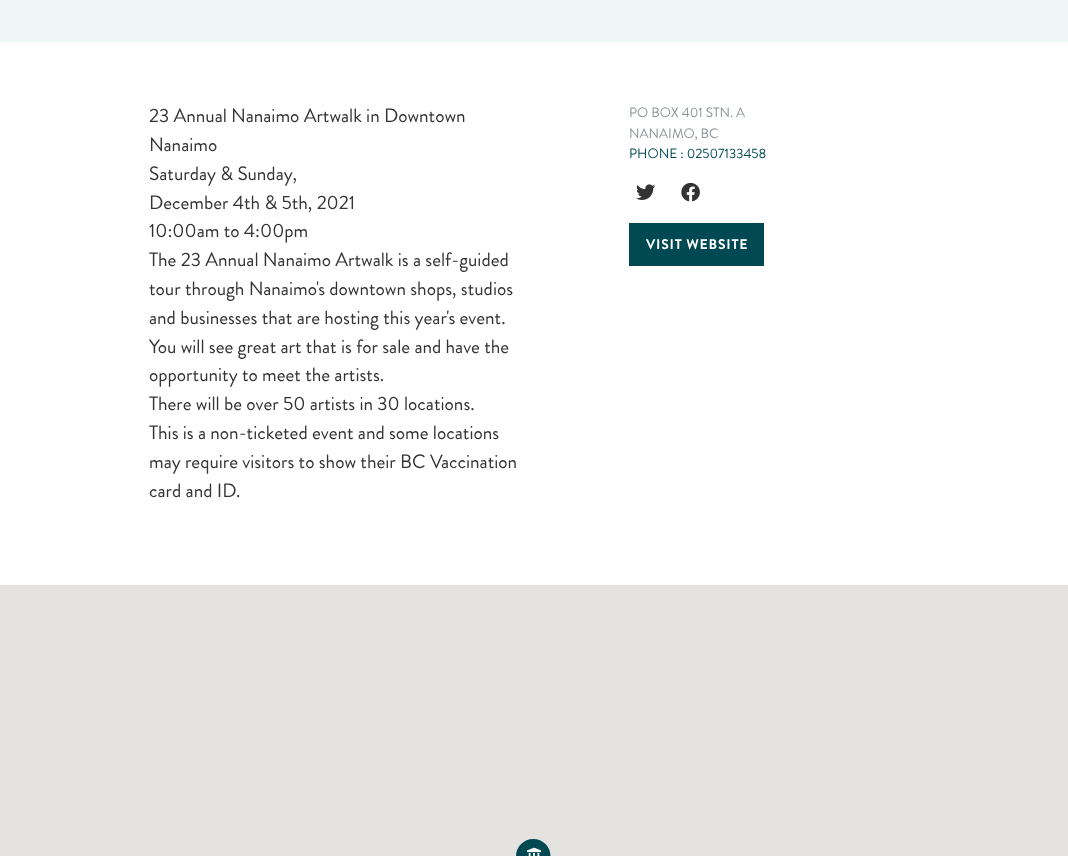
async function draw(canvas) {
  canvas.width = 1068;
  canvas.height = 856;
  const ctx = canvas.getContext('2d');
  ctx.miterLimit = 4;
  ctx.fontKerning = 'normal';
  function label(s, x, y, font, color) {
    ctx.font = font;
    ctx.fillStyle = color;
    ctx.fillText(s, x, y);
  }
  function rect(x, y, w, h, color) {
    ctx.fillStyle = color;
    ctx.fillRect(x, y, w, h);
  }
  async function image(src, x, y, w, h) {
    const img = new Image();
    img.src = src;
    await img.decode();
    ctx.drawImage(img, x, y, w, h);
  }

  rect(0, 0, 1068, 856, '#fff');
  rect(0, 0, 1068, 42, '#f0f5f6');
  label('23 Annual Nanaimo Artwalk in Downtown', 149, 122, '19.25px Brandon Grotesque', '#333');
  label('Nanaimo', 149, 151, '19.25px Brandon Grotesque', '#333');
  label('Saturday & Sunday,', 149, 180, '19.25px Brandon Grotesque', '#333');
  label('December 4th & 5th, 2021', 149, 209, '19.25px Brandon Grotesque', '#333');
  label('10:00am to 4:00pm', 149, 237, '19.25px Brandon Grotesque', '#333');
  label('The 23 Annual Nanaimo Artwalk is a self-guided', 149, 266, '19.25px Brandon Grotesque', '#333');
  label('tour through Nanaimo\'s downtown shops, studios', 149, 295, '19.25px Brandon Grotesque', '#333');
  label('and businesses that are hosting this year\'s event.', 149, 324, '19.25px Brandon Grotesque', '#333');
  label('You will see great art that is for sale and have the', 149, 353, '19.25px Brandon Grotesque', '#333');
  label('opportunity to meet the artists.', 149, 381, '19.25px Brandon Grotesque', '#333');
  label('There will be over 50 artists in 30 locations.', 149, 410, '19.25px Brandon Grotesque', '#333');
  label('This is a non-ticketed event and some locations', 149, 439, '19.25px Brandon Grotesque', '#333');
  label('may require visitors to show their BC Vaccination', 149, 468, '19.25px Brandon Grotesque', '#333');
  label('card and ID.', 149, 497, '19.25px Brandon Grotesque', '#333');
  label('PO BOX 401 STN. A', 629, 117, '13.6px Brandon Grotesque', '#8b9495');
  label('NANAIMO, BC', 629, 138, '13.6px Brandon Grotesque', '#8b9495');
  label('PHONE : 02507133458', 629, 158, '13.6px Brandon Grotesque', '#004953');
  await image('assets/img1.png', 636, 184, 19, 16);
  await image('assets/img2.png', 681, 182, 19, 20);
  rect(629, 223, 135, 43, '#004953');
  ctx.letterSpacing = '0.75px';
  label('VISIT WEBSITE', 646, 249, 'bold 14px Brandon Grotesque', '#fff');
  rect(0, 585, 1068, 271, '#e5e3df');
  await image('assets/img3.png', 516, 839, 35, 17);
  await image('assets/img4.png', 527, 847, 14, 9);
}

draw(document.querySelector('canvas'));
